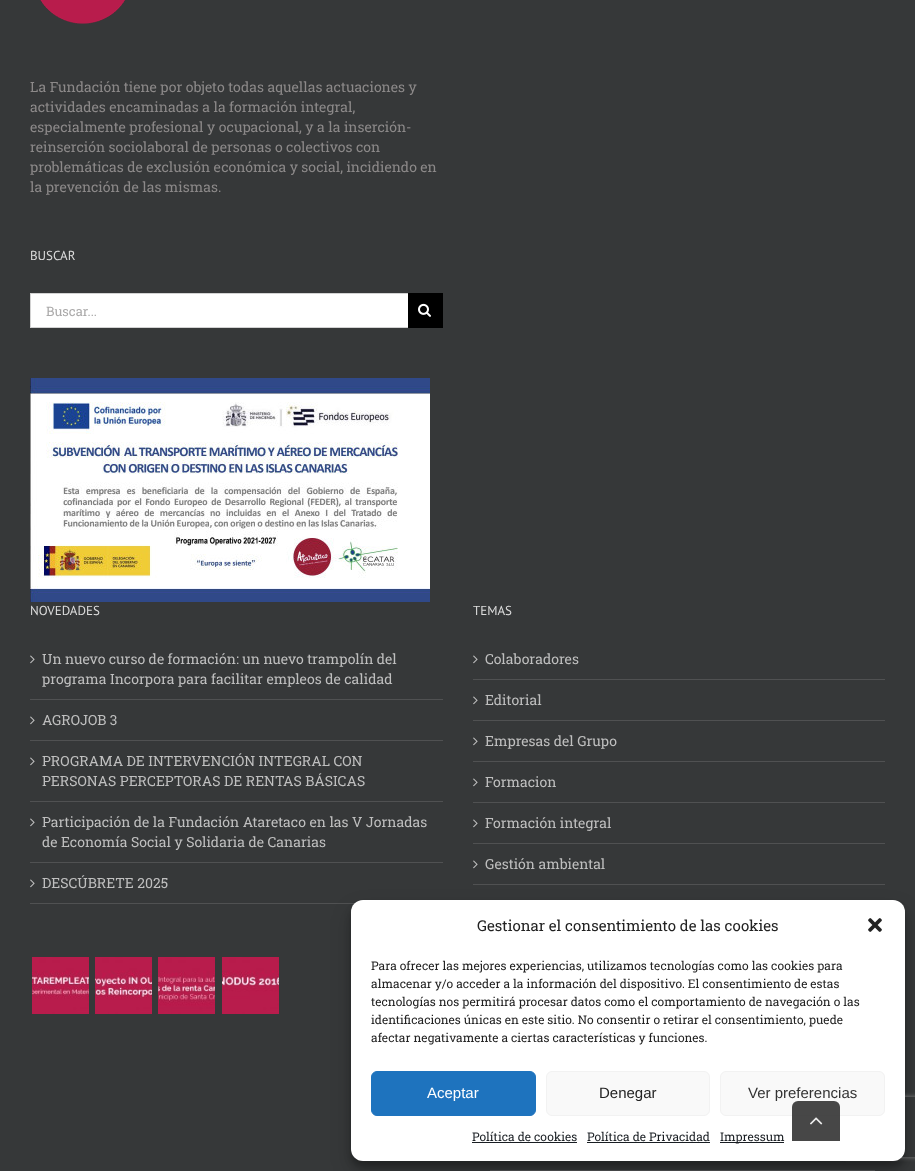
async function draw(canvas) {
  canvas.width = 915;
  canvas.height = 1171;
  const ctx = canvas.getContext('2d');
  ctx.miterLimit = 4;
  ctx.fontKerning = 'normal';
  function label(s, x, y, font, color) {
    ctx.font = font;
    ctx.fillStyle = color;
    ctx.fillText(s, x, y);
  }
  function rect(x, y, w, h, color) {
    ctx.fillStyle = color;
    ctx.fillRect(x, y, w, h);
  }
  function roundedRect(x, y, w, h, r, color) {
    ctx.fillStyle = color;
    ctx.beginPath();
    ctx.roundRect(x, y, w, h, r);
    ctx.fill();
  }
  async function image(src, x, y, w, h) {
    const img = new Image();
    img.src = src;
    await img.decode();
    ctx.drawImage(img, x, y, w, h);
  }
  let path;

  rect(0, 0, 915, 1171, '#363839');
  await image('assets/img1.png', 40, 0, 85, 24);
  label('La Fundación tiene por objeto todas aquellas actuaciones y', 30, 92, '14px Roboto Slab', '#8c8989');
  label('actividades encaminadas a la formación integral,', 30, 112, '14px Roboto Slab', '#8c8989');
  label('especialmente profesional y ocupacional, y a la inserción-', 30, 132, '14px Roboto Slab', '#8c8989');
  label('reinserción sociolaboral de personas o colectivos con', 30, 152, '14px Roboto Slab', '#8c8989');
  label('problemáticas de exclusión económica y social, incidiendo en', 30, 172, '14px Roboto Slab', '#8c8989');
  label('la prevención de las mismas.', 30, 192, '14px Roboto Slab', '#8c8989');
  label('BUSCAR', 30, 260, '13px PT Sans', '#ddd');
  rect(31, 294, 377, 33, '#fff');
  rect(30, 293, 378, 1, '#d2d2d2');
  rect(30, 327, 378, 1, '#d2d2d2');
  rect(30, 293, 1, 35, '#d2d2d2');
  label('Buscar...', 46, 316, '13px Roboto Slab', '#aaa9a9');
  rect(408, 293, 35, 35, '#000');
  await image('assets/img2.png', 418, 303, 13, 14);
  await image('assets/img3.png', 30, 378, 400, 224);
  label('NOVEDADES', 30, 615, '13px PT Sans', '#ddd');
  rect(30, 699, 413, 1, '#505152');
  await image('assets/img4.png', 30, 655, 5, 9);
  label('Un nuevo curso de formación: un nuevo trampolín del', 42, 664, '14px Roboto Slab', '#bfbfbf');
  label('programa Incorpora para facilitar empleos de calidad', 42, 684, '14px Roboto Slab', '#bfbfbf');
  rect(30, 740, 413, 1, '#505152');
  await image('assets/img4.png', 30, 716, 5, 9);
  label('AGROJOB 3', 42, 725, '14px Roboto Slab', '#bfbfbf');
  rect(30, 801, 413, 1, '#505152');
  await image('assets/img4.png', 30, 757, 5, 9);
  label('PROGRAMA DE INTERVENCIÓN INTEGRAL CON', 42, 766, '14px Roboto Slab', '#bfbfbf');
  label('PERSONAS PERCEPTORAS DE RENTAS BÁSICAS', 42, 786, '14px Roboto Slab', '#bfbfbf');
  rect(30, 862, 413, 1, '#505152');
  await image('assets/img4.png', 30, 818, 5, 9);
  label('Participación de la Fundación Ataretaco en las V Jornadas', 42, 827, '14px Roboto Slab', '#bfbfbf');
  label('de Economía Social y Solidaria de Canarias', 42, 847, '14px Roboto Slab', '#bfbfbf');
  rect(30, 903, 326, 1, '#505152');
  await image('assets/img4.png', 30, 879, 5, 9);
  label('DESCÚBRETE 2025', 42, 888, '14px Roboto Slab', '#bfbfbf');
  await image('assets/img5.png', 32, 957, 57, 57);
  await image('assets/img6.png', 95, 957, 57, 57);
  await image('assets/img7.png', 158, 957, 57, 57);
  await image('assets/img8.png', 222, 957, 57, 57);
  label('TEMAS', 473, 615, '13px PT Sans', '#ddd');
  rect(473, 679, 412, 1, '#505152');
  await image('assets/img4.png', 473, 655, 5, 9);
  label('Colaboradores', 485, 664, '14px Roboto Slab', '#bfbfbf');
  rect(473, 720, 412, 1, '#505152');
  await image('assets/img4.png', 473, 696, 5, 9);
  label('Editorial', 485, 705, '14px Roboto Slab', '#bfbfbf');
  rect(473, 761, 412, 1, '#505152');
  await image('assets/img4.png', 473, 737, 5, 9);
  label('Empresas del Grupo', 485, 746, '14px Roboto Slab', '#bfbfbf');
  rect(473, 802, 412, 1, '#505152');
  await image('assets/img4.png', 473, 778, 5, 9);
  label('Formacion', 485, 787, '14px Roboto Slab', '#bfbfbf');
  rect(473, 843, 412, 1, '#505152');
  await image('assets/img4.png', 473, 819, 5, 9);
  label('Formación integral', 485, 828, '14px Roboto Slab', '#bfbfbf');
  rect(473, 884, 412, 1, '#505152');
  await image('assets/img4.png', 473, 860, 5, 9);
  label('Gestión ambiental', 485, 869, '14px Roboto Slab', '#bfbfbf');
  rect(490, 1170, 385, 1, '#505152');
  ctx.fillStyle = '#0000003b';
  ctx.filter = 'blur(3px)';
  ctx.beginPath();
  ctx.roundRect(351, 906, 554, 261, 12);
  ctx.fill();
  ctx.filter = 'none';
  ctx.fillStyle = '#00000030';
  ctx.filter = 'blur(10px)';
  ctx.beginPath();
  ctx.roundRect(351, 910, 554, 261, 12);
  ctx.fill();
  ctx.filter = 'none';
  ctx.save();
  path = new Path2D('M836 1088H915V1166H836ZM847 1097H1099C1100 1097 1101 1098 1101 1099V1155C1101 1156 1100 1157 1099 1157H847C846 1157 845 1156 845 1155V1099C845 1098 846 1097 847 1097Z');
  ctx.clip(path, 'evenodd');
  ctx.fillStyle = '#808080';
  ctx.filter = 'blur(2.5px)';
  ctx.beginPath();
  ctx.roundRect(845, 1097, 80, 60, 2);
  ctx.fill();
  ctx.filter = 'none';
  ctx.restore();
  roundedRect(351, 900, 554, 261, 12, '#fff');
  label('Gestionar el consentimiento de las cookies', 477, 931, '15px Roboto Slab', '#222');
  await image('assets/img9.png', 868, 918, 14, 14);
  label('Para ofrecer las mejores experiencias, utilizamos tecnologías como las cookies para', 371, 970, '12px Roboto Slab', '#222');
  label('almacenar y/o acceder a la información del dispositivo. El consentimiento de estas', 371, 988, '12px Roboto Slab', '#222');
  label('tecnologías nos permitirá procesar datos como el comportamiento de navegación o las', 371, 1006, '12px Roboto Slab', '#222');
  label('identificaciones únicas en este sitio. No consentir o retirar el consentimiento, puede', 371, 1024, '12px Roboto Slab', '#222');
  label('afectar negativamente a ciertas características y funciones.', 371, 1042, '12px Roboto Slab', '#222');
  ctx.fillStyle = '#1e73be';
  ctx.beginPath();
  ctx.roundRect(371.5, 1071.5, 164, 44, 5.5);
  ctx.fill();
  ctx.strokeStyle = '#1e73be';
  ctx.stroke();
  label('Aceptar', 427, 1098, '15px Liberation Sans', '#fff');
  ctx.fillStyle = '#f9f9f9';
  ctx.beginPath();
  ctx.roundRect(546.5, 1071.5, 163, 44, 5.5);
  ctx.fill();
  ctx.strokeStyle = '#f2f2f2';
  ctx.stroke();
  label('Denegar', 599, 1098, '15px Liberation Sans', '#222');
  ctx.fillStyle = '#f9f9f9';
  ctx.beginPath();
  ctx.roundRect(720.5, 1071.5, 164, 44, 5.5);
  ctx.fill();
  ctx.stroke();
  label('Ver preferencias', 748, 1098, '15px Liberation Sans', '#333');
  label('Política de cookies', 472, 1141, '12px Roboto Slab', '#191e23');
  rect(472, 1142, 105, 1, '#191e23');
  label('Política de Privacidad', 587, 1141, '12px Roboto Slab', '#191e23');
  rect(587, 1142, 123, 1, '#191e23');
  rect(720, 1142, 64, 1, '#191e23');
  label('Impressum', 720, 1141, '12px Roboto Slab', '#191e23');
  ctx.fillStyle = '#333333e6';
  ctx.beginPath();
  ctx.roundRect(792, 1101, 48, 40, [6, 6, 0, 0]);
  ctx.fill();
  await image('assets/img10.png', 810, 1117, 13, 8);
}

draw(document.querySelector('canvas'));
